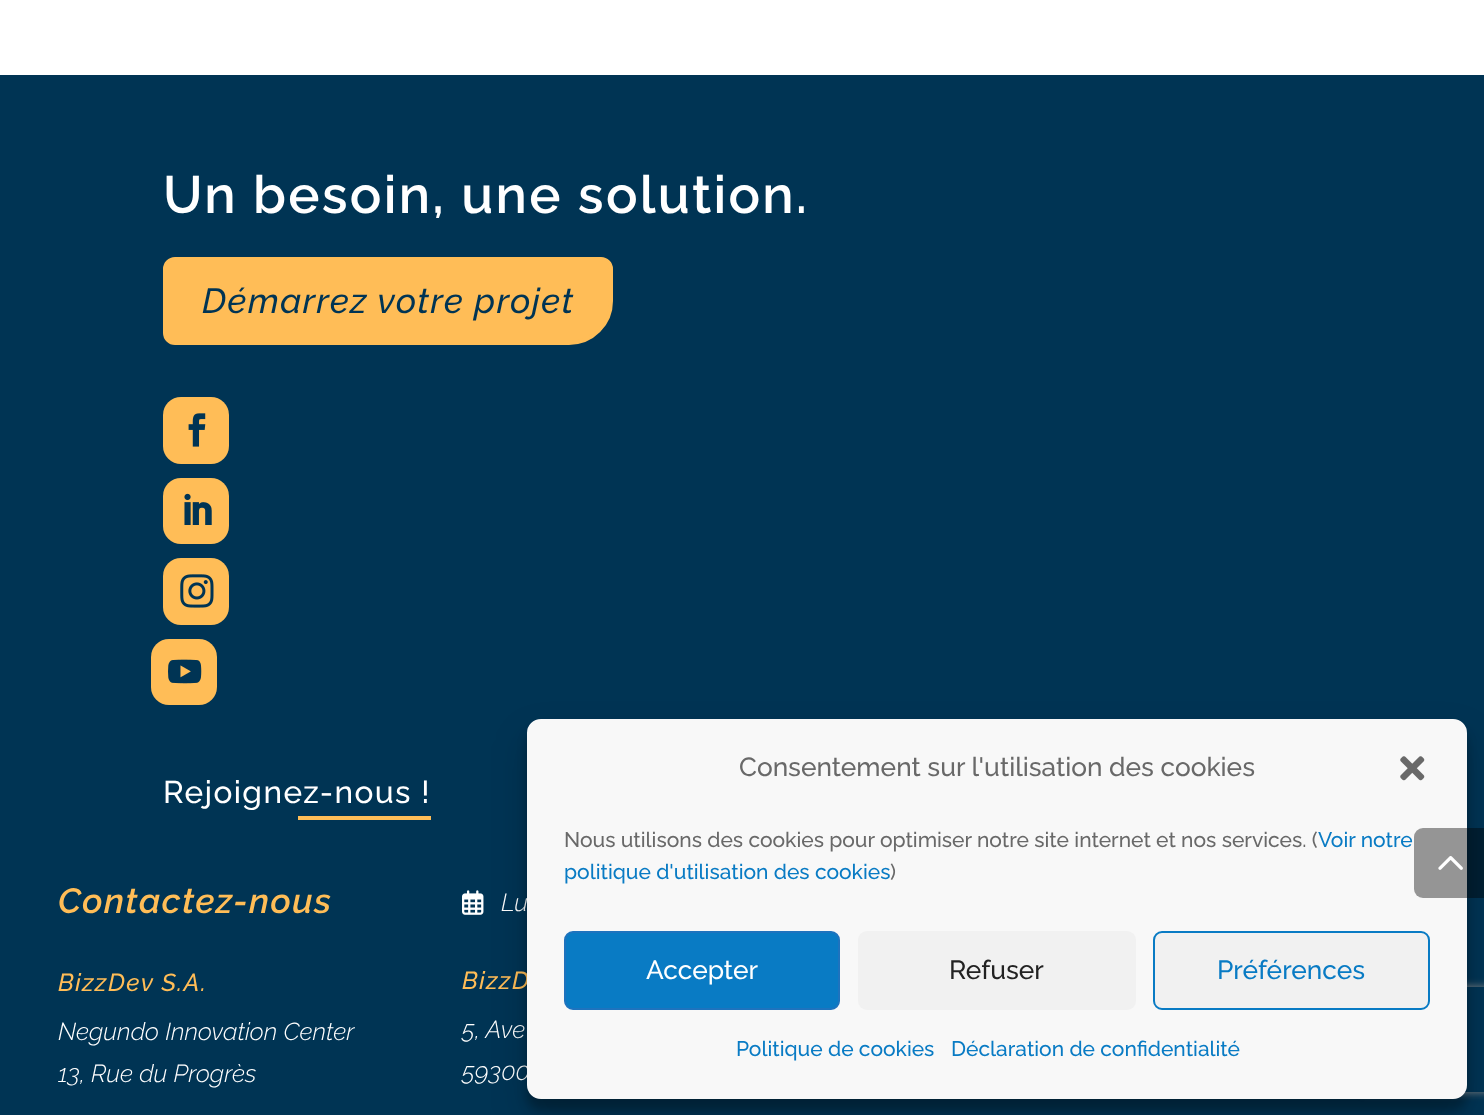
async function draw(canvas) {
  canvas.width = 1484;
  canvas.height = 1115;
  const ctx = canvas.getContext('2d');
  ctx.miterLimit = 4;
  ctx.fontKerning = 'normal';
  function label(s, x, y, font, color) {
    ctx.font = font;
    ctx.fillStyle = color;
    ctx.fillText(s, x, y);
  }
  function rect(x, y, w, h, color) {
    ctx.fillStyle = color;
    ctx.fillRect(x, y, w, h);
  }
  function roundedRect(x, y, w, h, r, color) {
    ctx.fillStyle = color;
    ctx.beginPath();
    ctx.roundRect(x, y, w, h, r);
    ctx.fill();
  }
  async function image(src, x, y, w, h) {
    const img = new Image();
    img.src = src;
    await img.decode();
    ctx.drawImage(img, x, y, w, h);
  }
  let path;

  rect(0, 0, 1484, 1115, '#fff');
  rect(0, 75, 1484, 1040, '#003454');
  ctx.letterSpacing = '2.25px';
  label('Un besoin, une solution.', 163, 213, '600 52.5px Raleway', '#fff');
  ctx.fillStyle = '#ffbd57';
  ctx.beginPath();
  ctx.roundRect(165, 259, 446, 84, [10, 10, 42, 10]);
  ctx.fill();
  ctx.strokeStyle = '#ffbd57';
  ctx.lineWidth = 4;
  ctx.stroke();
  ctx.letterSpacing = '1.4px';
  label('Démarrez votre projet', 202, 313, 'italic 500 35px Raleway', '#003454');
  roundedRect(163, 397, 66, 67, 18, '#ffbd57');
  await image('assets/img1.png', 188, 413, 18, 34);
  roundedRect(163, 478, 66, 66, 18, '#ffbd57');
  await image('assets/img2.png', 184, 493, 28, 32);
  roundedRect(163, 558, 66, 67, 18, '#ffbd57');
  await image('assets/img3.png', 180, 574, 34, 34);
  roundedRect(151, 639, 66, 66, 18, '#ffbd57');
  await image('assets/img4.png', 168, 659, 34, 25);
  label('Rejoignez-nous !', 163, 803, '500 31.5px Raleway', '#fff');
  rect(298, 816, 133, 4, '#ffbd57');
  label('Contactez-nous', 58, 913, 'italic 600 35px Raleway', '#ffbd57');
  label('BizzDev S.A.', 58, 991, 'italic 500 24.5px Raleway', '#ffbd57');
  ctx.letterSpacing = '0px';
  label('Negundo Innovation Center', 58, 1040, 'italic 300 24.5px Raleway', '#fff');
  label('13, Rue du Progrès', 58, 1082, 'italic 300 24.5px Raleway', '#fff');
  await image('assets/img5.png', 462, 890, 22, 25);
  label('Lu', 501, 911, 'italic 300 24.5px Raleway', '#fff');
  ctx.letterSpacing = '1.4px';
  label('BizzD', 462, 989, 'italic 500 24.5px Raleway', '#ffbd57');
  ctx.letterSpacing = '0px';
  label('5, Ave', 462, 1038, 'italic 300 24.5px Raleway', '#fff');
  label('59300', 462, 1080, 'italic 300 24.5px Raleway', '#fff');
  ctx.fillStyle = '#0000003b';
  ctx.filter = 'blur(5px)';
  ctx.beginPath();
  ctx.roundRect(527, 730, 940, 380, 14);
  ctx.fill();
  ctx.filter = 'none';
  ctx.fillStyle = '#00000030';
  ctx.filter = 'blur(17.5px)';
  ctx.beginPath();
  ctx.roundRect(527, 737, 940, 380, 14);
  ctx.fill();
  ctx.filter = 'none';
  ctx.save();
  path = new Path2D('M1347 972H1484V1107H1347ZM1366 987H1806C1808 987 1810 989 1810 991V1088C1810 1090 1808 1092 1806 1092H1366C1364 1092 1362 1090 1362 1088V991C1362 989 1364 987 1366 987Z');
  ctx.clip(path, 'evenodd');
  ctx.fillStyle = '#808080';
  ctx.filter = 'blur(4.5px)';
  ctx.beginPath();
  ctx.roundRect(1362, 987, 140, 105, 4);
  ctx.fill();
  ctx.filter = 'none';
  ctx.restore();
  ctx.fillStyle = '#f8f8f8';
  ctx.beginPath();
  ctx.roundRect(528, 720, 938, 378, 13);
  ctx.fill();
  ctx.strokeStyle = '#f8f8f8';
  ctx.lineWidth = 2;
  ctx.stroke();
  label('Consentement sur l\'utilisation des cookies', 739, 776, '500 26.25px Raleway', '#696969');
  await image('assets/img6.png', 1400, 756, 25, 25);
  label('Nous utilisons des cookies pour optimiser notre site internet et nos services. (', 564, 847, '500 21px Raleway', '#696969');
  label('Voir notre', 1318, 847, '500 21px Raleway', '#097bc4');
  label('politique d\'utilisation des cookies', 564, 879, '500 21px Raleway', '#097bc4');
  label(')', 890, 879, '500 21px Raleway', '#696969');
  ctx.fillStyle = '#097bc4';
  ctx.beginPath();
  ctx.roundRect(565, 932, 274, 77, 8);
  ctx.fill();
  ctx.strokeStyle = '#1e73be';
  ctx.stroke();
  label('Accepter', 646, 979, '500 26.25px Raleway', '#fff');
  roundedRect(858, 931, 278, 79, 9, '#f1f1f1');
  label('Refuser', 949, 979, '500 26.25px Raleway', '#222');
  ctx.fillStyle = '#f1f1f1';
  ctx.beginPath();
  ctx.roundRect(1154, 932, 275, 77, 8);
  ctx.fill();
  ctx.strokeStyle = '#097bc4';
  ctx.stroke();
  label('Préférences', 1217, 979, '500 26.25px Raleway', '#097bc4');
  label('Politique de cookies', 736, 1056, '500 21px Raleway', '#097bc4');
  label('Déclaration de confidentialité', 951, 1056, '500 21px Raleway', '#097bc4');
  ctx.fillStyle = '#00000066';
  ctx.beginPath();
  ctx.roundRect(1414, 828, 70, 70, [9, 0, 0, 9]);
  ctx.fill();
  await image('assets/img7.png', 1438, 856, 25, 14);
}

draw(document.querySelector('canvas'));
